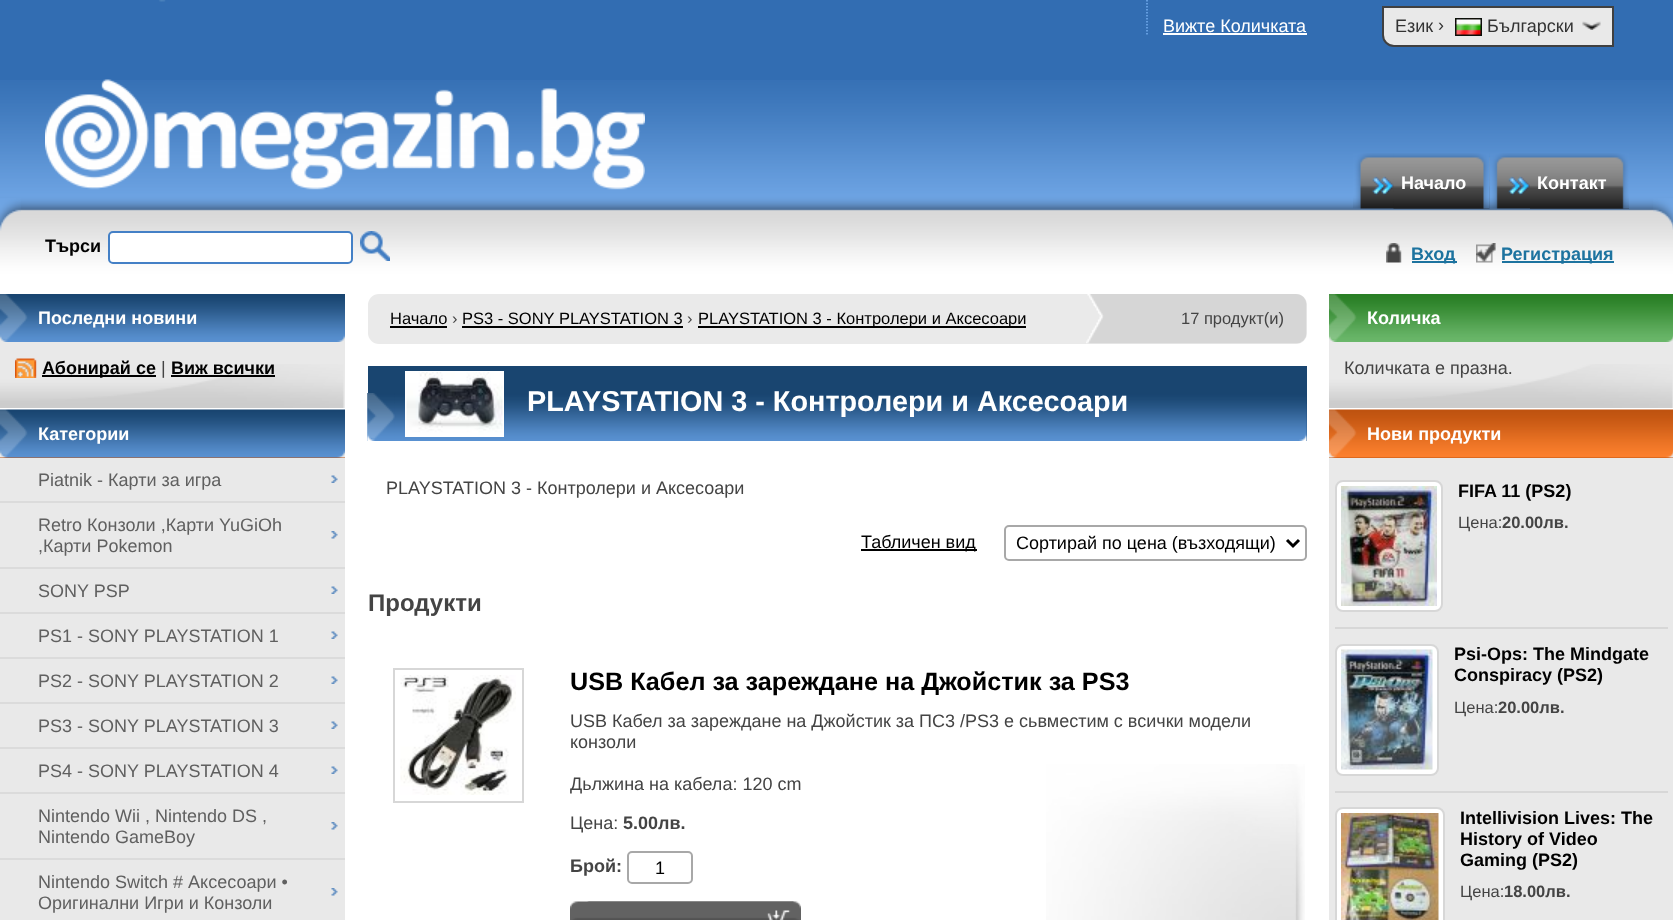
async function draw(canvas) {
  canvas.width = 1673;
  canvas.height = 920;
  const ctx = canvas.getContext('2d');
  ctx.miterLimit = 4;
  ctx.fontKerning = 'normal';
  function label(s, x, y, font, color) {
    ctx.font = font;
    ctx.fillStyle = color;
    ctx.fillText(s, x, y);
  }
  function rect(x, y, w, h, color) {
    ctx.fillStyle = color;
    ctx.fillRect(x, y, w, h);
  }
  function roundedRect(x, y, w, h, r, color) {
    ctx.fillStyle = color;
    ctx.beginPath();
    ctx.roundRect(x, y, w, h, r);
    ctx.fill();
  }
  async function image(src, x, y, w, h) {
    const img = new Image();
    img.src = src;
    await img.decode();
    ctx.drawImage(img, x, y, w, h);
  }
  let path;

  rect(0, 0, 1673, 920, '#fff');
  rect(0, 0, 1673, 80, '#326db2');
  await image('assets/img1.png', 0, 80, 1673, 199);
  await image('assets/img2.png', 0, 198, 21, 33);
  await image('assets/img3.png', 1653, 198, 20, 32);
  await image('assets/img4.png', 45, 0, 600, 190);
  path = new Path2D('M1147 0V36');
  ctx.strokeStyle = '#74adf0';
  ctx.lineWidth = 1.5;
  ctx.setLineDash([1.5, 1.5]);
  ctx.stroke(path);
  label('Вижте Количката', 1163, 32, '18px Liberation Sans', '#fff');
  rect(1163, 33, 144, 2, '#fff');
  ctx.fillStyle = '#e9e9e9';
  ctx.beginPath();
  ctx.roundRect(1383, 7, 230, 39, [0, 0, 0, 11]);
  ctx.fill();
  ctx.strokeStyle = '#404040';
  ctx.lineWidth = 2;
  ctx.setLineDash([]);
  ctx.stroke();
  await image('assets/img5.png', 1582, 21, 19, 9);
  label('Език', 1395, 32, '18px Liberation Sans', '#333');
  label('›', 1438, 31, '18px Liberation Sans', '#333');
  await image('assets/img6.png', 1455, 18, 27, 18);
  label('Български', 1487, 32, '18px Liberation Sans', '#333');
  await image('assets/img7.png', 1353, 153, 137, 56);
  await image('assets/img8.png', 1393, 153, 97, 56);
  label('Начало', 1401, 189, 'bold 18px Liberation Sans', '#fff');
  await image('assets/img9.png', 1489, 153, 140, 56);
  await image('assets/img10.png', 1530, 153, 99, 56);
  label('Контакт', 1537, 189, 'bold 18px Liberation Sans', '#fff');
  label('Търси', 45, 252, 'bold 18px Liberation Sans', '#000');
  ctx.fillStyle = '#fff';
  ctx.beginPath();
  ctx.roundRect(109, 232, 243, 31, 4);
  ctx.fill();
  ctx.strokeStyle = '#4480c6';
  ctx.stroke();
  await image('assets/img11.png', 360, 231, 30, 30);
  await image('assets/img12.png', 1386, 243, 16, 20);
  rect(1412, 261, 45, 2, '#1d739f');
  label('Вход', 1411, 260, 'bold 18px Liberation Sans', '#1d739f');
  await image('assets/img13.png', 1476, 243, 20, 20);
  rect(1502, 261, 112, 2, '#1d739f');
  label('Регистрация', 1501, 260, 'bold 18px Liberation Sans', '#1d739f');
  rect(0, 342, 345, 66, '#e9e9e9');
  await image('assets/img14.png', 0, 294, 345, 48);
  label('Последни новини', 38, 324, 'bold 18px Liberation Sans', '#fff');
  await image('assets/img15.png', 0, 364, 344, 44);
  await image('assets/img16.png', 15, 358, 22, 20);
  rect(42, 375, 114, 2, '#000');
  label('Абонирай се', 42, 374, 'bold 18px Liberation Sans', '#000');
  label('|', 161, 374, '18px Liberation Sans', '#444');
  label('Виж всички', 171, 374, 'bold 18px Liberation Sans', '#000');
  rect(171, 375, 104, 2, '#000');
  rect(0, 458, 345, 462, '#e9e9e9');
  rect(0, 457, 345, 1, '#bf5310');
  await image('assets/img17.png', 0, 409, 345, 49);
  label('Категории', 38, 440, 'bold 18px Liberation Sans', '#fff');
  rect(0, 501, 345, 2, '#dbdbdb');
  await image('assets/img18.png', 331, 475, 7, 8);
  label('Piatnik - Карти за игра', 38, 486, '18px Liberation Sans', '#606060');
  rect(0, 567, 345, 2, '#dbdbdb');
  await image('assets/img19.png', 331, 531, 7, 8);
  label('Retro Конзоли ,Карти YuGiOh', 38, 531, '18px Liberation Sans', '#606060');
  label(',Карти Pokemon', 38, 552, '18px Liberation Sans', '#606060');
  rect(0, 612, 345, 2, '#dbdbdb');
  await image('assets/img18.png', 331, 586, 7, 8);
  label('SONY PSP', 38, 597, '18px Liberation Sans', '#606060');
  rect(0, 657, 345, 2, '#dbdbdb');
  await image('assets/img18.png', 331, 631, 7, 8);
  label('PS1 - SONY PLAYSTATION 1', 38, 642, '18px Liberation Sans', '#606060');
  rect(0, 702, 345, 2, '#dbdbdb');
  await image('assets/img18.png', 331, 676, 7, 8);
  label('PS2 - SONY PLAYSTATION 2', 38, 687, '18px Liberation Sans', '#606060');
  rect(0, 747, 345, 2, '#dbdbdb');
  await image('assets/img18.png', 331, 721, 7, 8);
  label('PS3 - SONY PLAYSTATION 3', 38, 732, '18px Liberation Sans', '#606060');
  rect(0, 792, 345, 2, '#dbdbdb');
  await image('assets/img18.png', 331, 766, 7, 8);
  label('PS4 - SONY PLAYSTATION 4', 38, 777, '18px Liberation Sans', '#606060');
  rect(0, 858, 345, 2, '#dbdbdb');
  await image('assets/img19.png', 331, 822, 7, 8);
  label('Nintendo Wii , Nintendo DS ,', 38, 822, '18px Liberation Sans', '#606060');
  label('Nintendo GameBoy', 38, 843, '18px Liberation Sans', '#606060');
  await image('assets/img19.png', 331, 888, 7, 8);
  label('Nintendo Switch # Аксесоари •', 38, 888, '18px Liberation Sans', '#606060');
  label('Оригинални Игри и Конзоли', 38, 909, '18px Liberation Sans', '#606060');
  roundedRect(368, 294, 939, 50, 11, '#eaeaea');
  await image('assets/img20.png', 1086, 294, 221, 50);
  label('Начало', 390, 324, '16.5px Liberation Sans', '#000');
  rect(390, 326, 57, 2, '#000');
  label('›', 452, 324, '16.5px Liberation Sans', '#444');
  label('PS3 - SONY PLAYSTATION 3', 462, 324, '16.5px Liberation Sans', '#000');
  rect(462, 326, 221, 2, '#000');
  label('›', 687, 324, '16.5px Liberation Sans', '#444');
  rect(698, 326, 328, 2, '#000');
  label('PLAYSTATION 3 - Контролери и Аксесоари', 698, 324, '16.5px Liberation Sans', '#000');
  label('17 продукт(и)', 1181, 324, '16.5px Liberation Sans', '#444');
  rect(368, 366, 939, 75, '#194570');
  await image('assets/img21.png', 367, 393, 940, 48);
  await image('assets/img22.png', 367, 393, 28, 48);
  await image('assets/img23.png', 1299, 404, 8, 37);
  ctx.strokeStyle = '#fff';
  ctx.strokeRect(406, 372, 97, 64);
  await image('assets/img24.png', 406, 372, 97, 63);
  label('PLAYSTATION 3 - Контролери и Аксесоари', 527, 411, 'bold 28.8px Liberation Sans', '#fff');
  label('PLAYSTATION 3 - Контролери и Аксесоари', 386, 494, '18px Liberation Sans', '#444');
  rect(861, 549, 116, 2, '#000');
  label('Табличен вид', 861, 548, '18px Liberation Sans', '#000');
  ctx.beginPath();
  ctx.roundRect(1005, 526, 301, 34, 4);
  ctx.strokeStyle = '#a8a8a8';
  ctx.stroke();
  path = new Path2D('M1287 540L1293 546L1299 540');
  ctx.strokeStyle = '#000';
  ctx.lineWidth = 3;
  ctx.stroke(path);
  label('Сортирай по цена (възходящи)', 1016, 549, '18px Liberation Sans', '#000');
  label('Продукти', 368, 611, 'bold 24px Liberation Sans', '#444');
  ctx.strokeStyle = '#d7d7d7';
  ctx.lineWidth = 2;
  ctx.strokeRect(394, 669, 129, 133);
  await image('assets/img25.png', 400, 675, 116, 120);
  await image('assets/img26.png', 1046, 764, 259, 156);
  label('USB Кабел за зареждане на Джойстик за PS3', 570, 690, 'bold 25.2px Liberation Sans', '#000');
  label('USB Кабел за зареждане на Джойстик за ПС3 /PS3 е сьвместим с всички модели', 570, 727, '18px Liberation Sans', '#444');
  label('конзоли', 570, 748, '18px Liberation Sans', '#444');
  label('Дьлжина на кабела: 120 cm', 570, 790, '18px Liberation Sans', '#444');
  label('Цена:', 570, 829, '18px Liberation Sans', '#444');
  label('5.00лв.', 623, 829, 'bold 18px Liberation Sans', '#444');
  label('Брой:', 570, 872, 'bold 18px Liberation Sans', '#444');
  ctx.beginPath();
  ctx.roundRect(628, 852, 64, 31, 4);
  ctx.strokeStyle = '#a8a8a8';
  ctx.stroke();
  label('1', 655, 874, '18px Liberation Sans', '#000');
  await image('assets/img27.png', 570, 901, 224, 19);
  await image('assets/img28.png', 587, 901, 214, 19);
  rect(1329, 342, 344, 66, '#e9e9e9');
  await image('assets/img29.png', 1329, 294, 344, 48);
  label('Количка', 1367, 324, 'bold 18px Liberation Sans', '#fff');
  await image('assets/img30.png', 1329, 364, 344, 44);
  label('Количката е празна.', 1344, 374, '18px Liberation Sans', '#444');
  rect(1329, 458, 344, 462, '#e9e9e9');
  rect(1329, 457, 344, 1, '#bf5310');
  await image('assets/img31.png', 1329, 409, 344, 49);
  label('Нови продукти', 1367, 440, 'bold 18px Liberation Sans', '#fff');
  rect(1335, 627, 333, 2, '#d7d7d7');
  ctx.fillStyle = '#fff';
  ctx.beginPath();
  ctx.roundRect(1336, 481, 106, 130, 7);
  ctx.fill();
  ctx.strokeStyle = '#d7d7d7';
  ctx.stroke();
  await image('assets/img32.png', 1341, 486, 96, 120);
  label('FIFA 11 (PS2)', 1458, 497, 'bold 18px Liberation Sans', '#000');
  label('Цена:', 1458, 528, '16.5px Liberation Sans', '#444');
  label('20.00лв.', 1502, 528, 'bold 16.5px Liberation Sans', '#444');
  rect(1335, 791, 333, 2, '#d7d7d7');
  ctx.fillStyle = '#fff';
  ctx.beginPath();
  ctx.roundRect(1336, 645, 102, 130, 7);
  ctx.fill();
  ctx.stroke();
  await image('assets/img33.png', 1341, 649, 92, 121);
  label('Psi-Ops: The Mindgate', 1454, 660, 'bold 18px Liberation Sans', '#000');
  label('Conspiracy (PS2)', 1454, 681, 'bold 18px Liberation Sans', '#000');
  label('Цена:', 1454, 713, '16.5px Liberation Sans', '#444');
  label('20.00лв.', 1498, 713, 'bold 16.5px Liberation Sans', '#444');
  ctx.fillStyle = '#fff';
  ctx.beginPath();
  ctx.roundRect(1336, 808, 108, 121, 7);
  ctx.fill();
  ctx.stroke();
  await image('assets/img34.png', 1341, 813, 98, 107);
  label('Intellivision Lives: The', 1460, 824, 'bold 18px Liberation Sans', '#000');
  label('History of Video', 1460, 845, 'bold 18px Liberation Sans', '#000');
  label('Gaming (PS2)', 1460, 866, 'bold 18px Liberation Sans', '#000');
  label('Цена:', 1460, 897, '16.5px Liberation Sans', '#444');
  label('18.00лв.', 1504, 897, 'bold 16.5px Liberation Sans', '#444');
}

draw(document.querySelector('canvas'));
